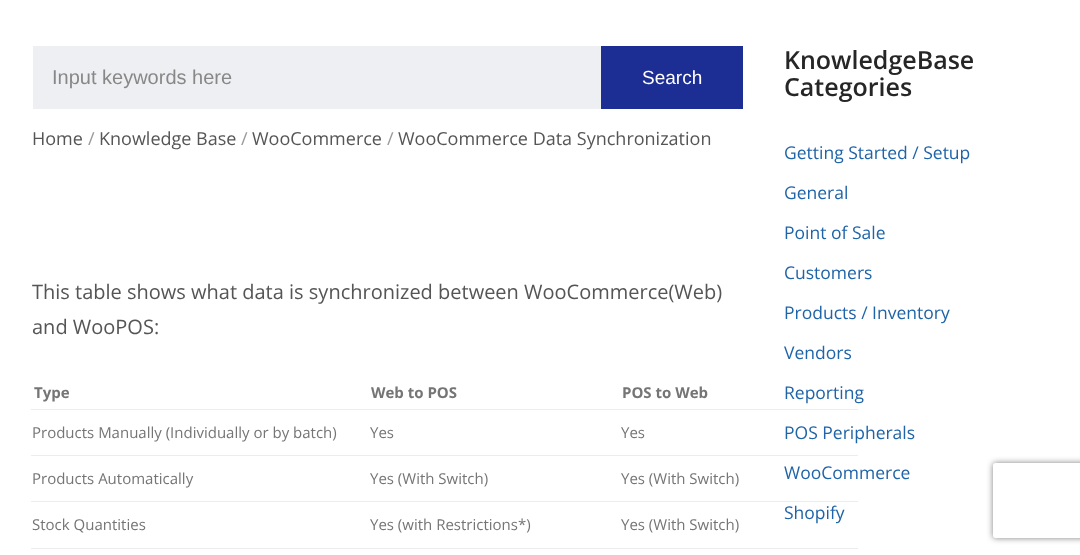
async function draw(canvas) {
  canvas.width = 1080;
  canvas.height = 555;
  const ctx = canvas.getContext('2d');
  ctx.miterLimit = 4;
  ctx.fontKerning = 'normal';
  function label(s, x, y, font, color) {
    ctx.font = font;
    ctx.fillStyle = color;
    ctx.fillText(s, x, y);
  }
  function rect(x, y, w, h, color) {
    ctx.fillStyle = color;
    ctx.fillRect(x, y, w, h);
  }
  let path;

  rect(0, 0, 1080, 555, '#fff');
  rect(33, 46, 568, 63, '#edeff2');
  label('Input keywords here', 52, 84, '20px Liberation Sans', '#888');
  rect(601, 46, 142, 63, '#1c2e94');
  label('Search', 642, 84, '19px Liberation Sans', '#fff');
  label('Home', 32, 145, '18px Open Sans', '#555');
  label('/', 88, 145, '18px Open Sans', '#999');
  label('Knowledge Base', 99, 145, '18px Open Sans', '#555');
  label('/', 241, 145, '18px Open Sans', '#999');
  label('WooCommerce', 252, 145, '18px Open Sans', '#555');
  label('/', 387, 145, '18px Open Sans', '#999');
  label('WooCommerce Data Synchronization', 398, 145, '18px Open Sans', '#555');
  label('This table shows what data is synchronized between WooCommerce(Web)', 32, 299, '20px Open Sans', '#555');
  label('and WooPOS:', 32, 334, '20px Open Sans', '#555');
  label('Type', 34, 398, 'bold 15px Open Sans', '#757575');
  label('Web to POS', 371, 398, 'bold 15px Open Sans', '#757575');
  label('POS to Web', 622, 398, 'bold 15px Open Sans', '#757575');
  label('Products Manually (Individually or by batch)', 32, 438, '15px Open Sans', '#757575');
  label('Yes', 370, 438, '15px Open Sans', '#757575');
  rect(31, 409, 827, 1, '#ededed');
  label('Yes', 621, 438, '15px Open Sans', '#757575');
  label('Products Automatically', 32, 484, '15px Open Sans', '#757575');
  label('Yes (With Switch)', 370, 484, '15px Open Sans', '#757575');
  rect(31, 455, 827, 1, '#ededed');
  label('Yes (With Switch)', 621, 484, '15px Open Sans', '#757575');
  label('Stock Quantities', 32, 530, '15px Open Sans', '#757575');
  label('Yes (with Restrictions*)', 370, 530, '15px Open Sans', '#757575');
  rect(31, 501, 827, 1, '#ededed');
  label('Yes (With Switch)', 621, 530, '15px Open Sans', '#757575');
  rect(31, 548, 827, 1, '#ededed');
  label('KnowledgeBase', 784, 69, '600 25px Open Sans', '#262626');
  label('Categories', 784, 96, '600 25px Open Sans', '#262626');
  label('Getting Started / Setup', 784, 159, '17.5px Open Sans', '#1f64a8');
  label('General', 784, 199, '17.5px Open Sans', '#1f64a8');
  label('Point of Sale', 784, 239, '17.5px Open Sans', '#1f64a8');
  label('Customers', 784, 279, '17.5px Open Sans', '#1f64a8');
  label('Products / Inventory', 784, 319, '17.5px Open Sans', '#1f64a8');
  label('Vendors', 784, 359, '17.5px Open Sans', '#1f64a8');
  label('Reporting', 784, 399, '17.5px Open Sans', '#1f64a8');
  label('POS Peripherals', 784, 439, '17.5px Open Sans', '#1f64a8');
  label('WooCommerce', 784, 479, '17.5px Open Sans', '#1f64a8');
  label('Shopify', 784, 519, '17.5px Open Sans', '#1f64a8');
  ctx.save();
  path = new Path2D('M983 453H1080V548H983ZM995.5 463H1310.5C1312 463 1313 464 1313 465.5V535.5C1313 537 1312 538 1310.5 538H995.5C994 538 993 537 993 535.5V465.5C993 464 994 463 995.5 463Z');
  ctx.clip(path, 'evenodd');
  ctx.fillStyle = '#808080';
  ctx.filter = 'blur(3px)';
  ctx.beginPath();
  ctx.roundRect(993, 463, 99, 75, 2.5);
  ctx.fill();
  ctx.filter = 'none';
  ctx.restore();
}

draw(document.querySelector('canvas'));
